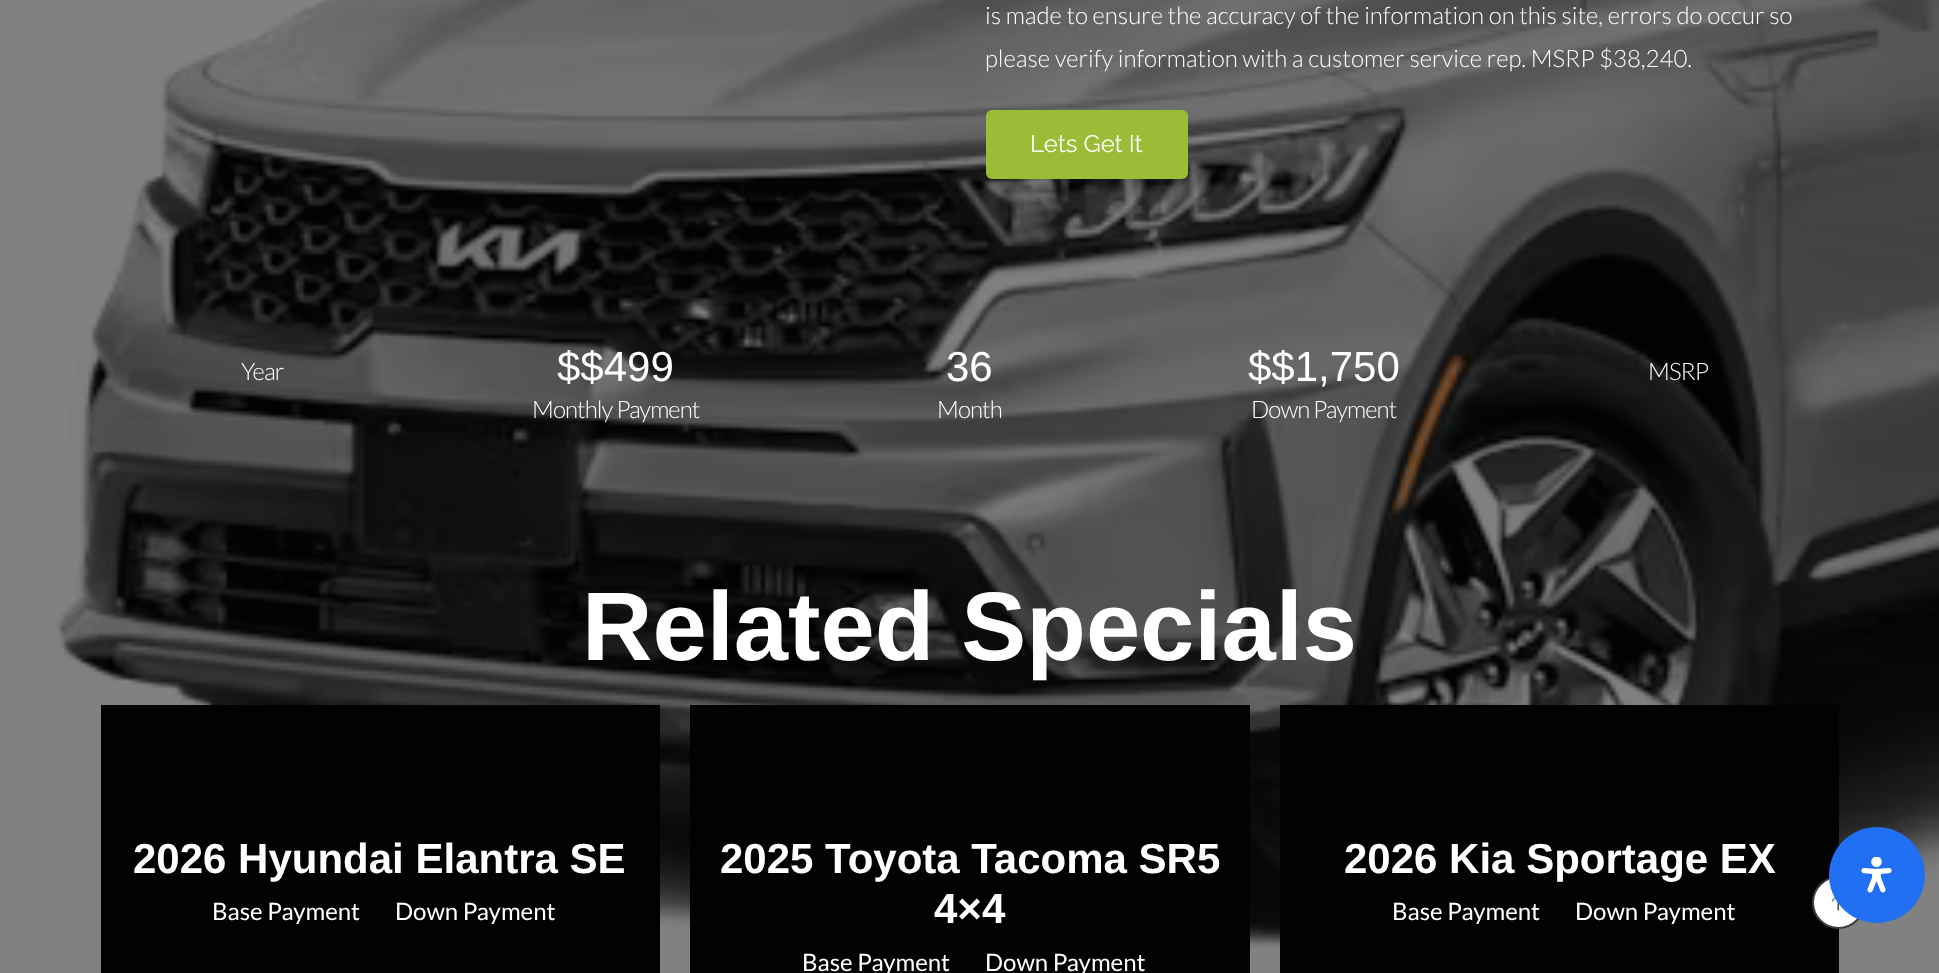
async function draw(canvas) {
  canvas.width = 1939;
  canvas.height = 973;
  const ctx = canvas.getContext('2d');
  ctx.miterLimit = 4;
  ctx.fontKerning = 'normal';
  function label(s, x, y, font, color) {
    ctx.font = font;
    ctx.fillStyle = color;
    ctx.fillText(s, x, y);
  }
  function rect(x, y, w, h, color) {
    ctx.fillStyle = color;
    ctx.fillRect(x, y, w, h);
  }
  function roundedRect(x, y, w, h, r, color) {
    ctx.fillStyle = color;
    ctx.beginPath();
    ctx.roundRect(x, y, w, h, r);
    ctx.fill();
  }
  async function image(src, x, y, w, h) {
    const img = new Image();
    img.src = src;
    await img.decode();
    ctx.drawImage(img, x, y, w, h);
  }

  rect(0, 0, 1939, 973, '#818181');
  await image('assets/img1.png', 55, 0, 1884, 948);
  label('is made to ensure the accuracy of the information on this site, errors do occur so', 985, 24, '300 24px Lato', '#fff');
  label('please verify information with a customer service rep. MSRP $38,240.', 985, 67, '300 24px Lato', '#fff');
  roundedRect(986, 110, 202, 69, 6, '#9abc37');
  label('Lets Get It', 1030, 152, '24px Raleway', '#fff');
  ctx.letterSpacing = '-0.9px';
  label('Year', 241, 380, '300 24px Lato', '#fff');
  ctx.letterSpacing = '0px';
  label('$$499', 557, 381, '42px Liberation Sans', '#fff');
  ctx.letterSpacing = '-0.9px';
  label('Monthly Payment', 532, 418, '300 24px Lato', '#fff');
  ctx.letterSpacing = '0px';
  label('36', 946, 381, '42px Liberation Sans', '#fff');
  ctx.letterSpacing = '-0.9px';
  label('Month', 937, 418, '300 24px Lato', '#fff');
  ctx.letterSpacing = '0px';
  label('$$1,750', 1248, 381, '42px Liberation Sans', '#fff');
  ctx.letterSpacing = '-0.9px';
  label('Down Payment', 1251, 418, '300 24px Lato', '#fff');
  label('MSRP', 1648, 380, '300 24px Lato', '#fff');
  ctx.letterSpacing = '0px';
  label('Related Specials', 582, 660, 'bold 97.5px Liberation Sans', '#fff');
  rect(101, 705, 559, 268, '#020202');
  label('2026 Hyundai Elantra SE', 133, 873, 'bold 42px Liberation Sans', '#fff');
  label('Base Payment', 212, 920, '24px Lato', '#fff');
  label('Down Payment', 395, 920, '24px Lato', '#fff');
  rect(690, 705, 560, 268, '#020202');
  label('2025 Toyota Tacoma SR5', 720, 873, 'bold 42px Liberation Sans', '#fff');
  label('4×4', 934, 923, 'bold 42px Liberation Sans', '#fff');
  label('Base Payment', 802, 971, '24px Lato', '#fff');
  label('Down Payment', 985, 971, '24px Lato', '#fff');
  rect(1280, 705, 559, 268, '#020202');
  label('2026 Kia Sportage EX', 1344, 873, 'bold 42px Liberation Sans', '#fff');
  label('Base Payment', 1392, 920, '24px Lato', '#fff');
  label('Down Payment', 1575, 920, '24px Lato', '#fff');
  ctx.beginPath();
  ctx.arc(1838.5, 902.5, 25.5, 0, 2 * Math.PI);
  ctx.fill();
  ctx.strokeStyle = '#3d3d3d';
  ctx.lineWidth = 2;
  ctx.stroke();
  await image('assets/img3.png', 1832, 896, 7, 15);
  ctx.fillStyle = '#216ff3';
  ctx.beginPath();
  ctx.arc(1877, 875, 48, 0, 2 * Math.PI);
  ctx.fill();
  await image('assets/img2.png', 1861, 857, 31, 36);
}

draw(document.querySelector('canvas'));
